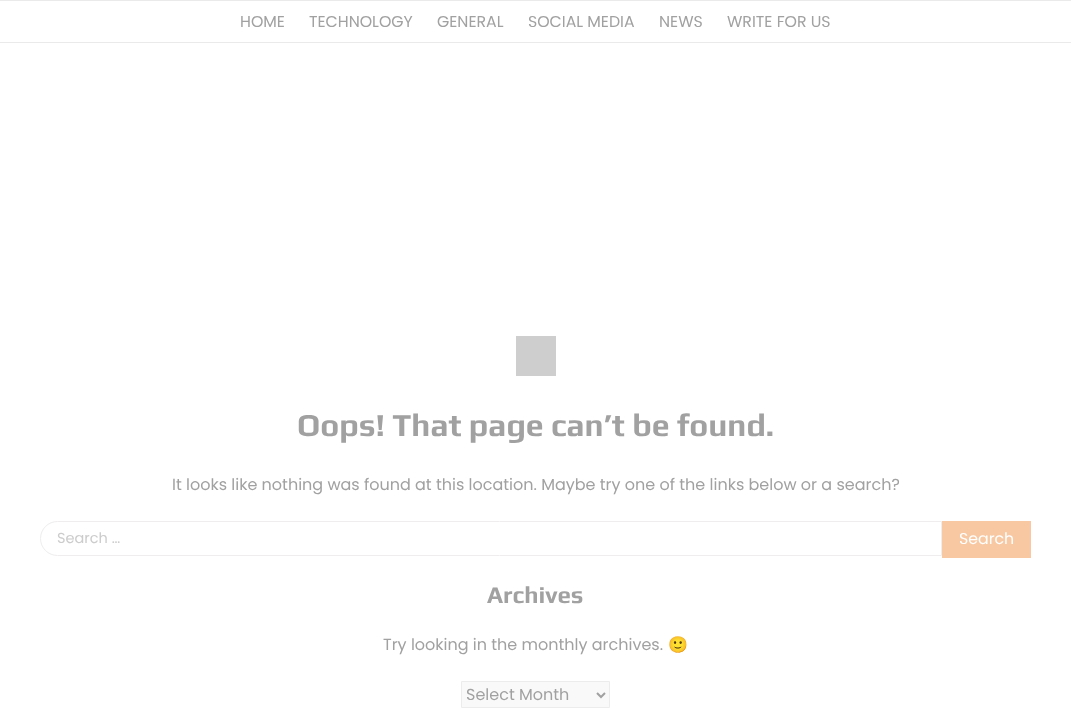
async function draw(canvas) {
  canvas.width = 1071;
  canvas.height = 712;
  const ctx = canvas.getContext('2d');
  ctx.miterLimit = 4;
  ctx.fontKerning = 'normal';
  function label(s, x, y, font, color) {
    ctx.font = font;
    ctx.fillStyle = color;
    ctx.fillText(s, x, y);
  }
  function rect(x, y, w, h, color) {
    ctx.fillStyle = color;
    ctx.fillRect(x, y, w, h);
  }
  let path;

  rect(0, 0, 1071, 712, '#fff');
  rect(0, 0, 1071, 1, '#eaeaea');
  rect(0, 42, 1071, 1, '#eaeaea');
  label('HOME', 240, 27, '15.75px Poppins', '#a1a1a1');
  label('TECHNOLOGY', 309, 27, '15.75px Poppins', '#a1a1a1');
  label('GENERAL', 437, 27, '15.75px Poppins', '#a1a1a1');
  label('SOCIAL MEDIA', 528, 27, '15.75px Poppins', '#a1a1a1');
  label('NEWS', 659, 27, '15.75px Poppins', '#a1a1a1');
  label('WRITE FOR US', 727, 27, '15.75px Poppins', '#a1a1a1');
  rect(516, 336, 40, 40, '#cecece');
  label('Oops! That page can’t be found.', 297, 436, 'bold 32px Play', '#a1a1a1');
  label('It looks like nothing was found at this location. Maybe try one of the links below or a search?', 172, 490, '16px Poppins', '#a1a1a1');
  ctx.beginPath();
  ctx.roundRect(40.5, 521.5, 901, 34, [17, 0, 0, 17]);
  ctx.strokeStyle = '#efedee';
  ctx.stroke();
  label('Search …', 57, 543, '14.5px Poppins', '#ccc');
  rect(942, 521, 89, 37, '#f8c8a2');
  label('Search', 959, 544, '15.75px Poppins', '#fff');
  label('Archives', 487, 603, 'bold 24px Play', '#a1a1a1');
  label('Try looking in the monthly archives.', 383, 650, '16px Poppins', '#a1a1a1');
  label('🙂', 668, 650, '16px Noto Color Emoji', '#a1a1a1');
  ctx.fillStyle = '#f9f9f9';
  ctx.beginPath();
  ctx.rect(461.5, 681.5, 148, 26);
  ctx.fill();
  ctx.strokeStyle = '#ececec';
  ctx.stroke();
  path = new Path2D('M597 693L601 697L605 693');
  ctx.strokeStyle = '#a1a1a1';
  ctx.lineWidth = 2;
  ctx.stroke(path);
  label('Select Month', 466, 700, '16px Poppins', '#a1a1a1');
}

draw(document.querySelector('canvas'));
